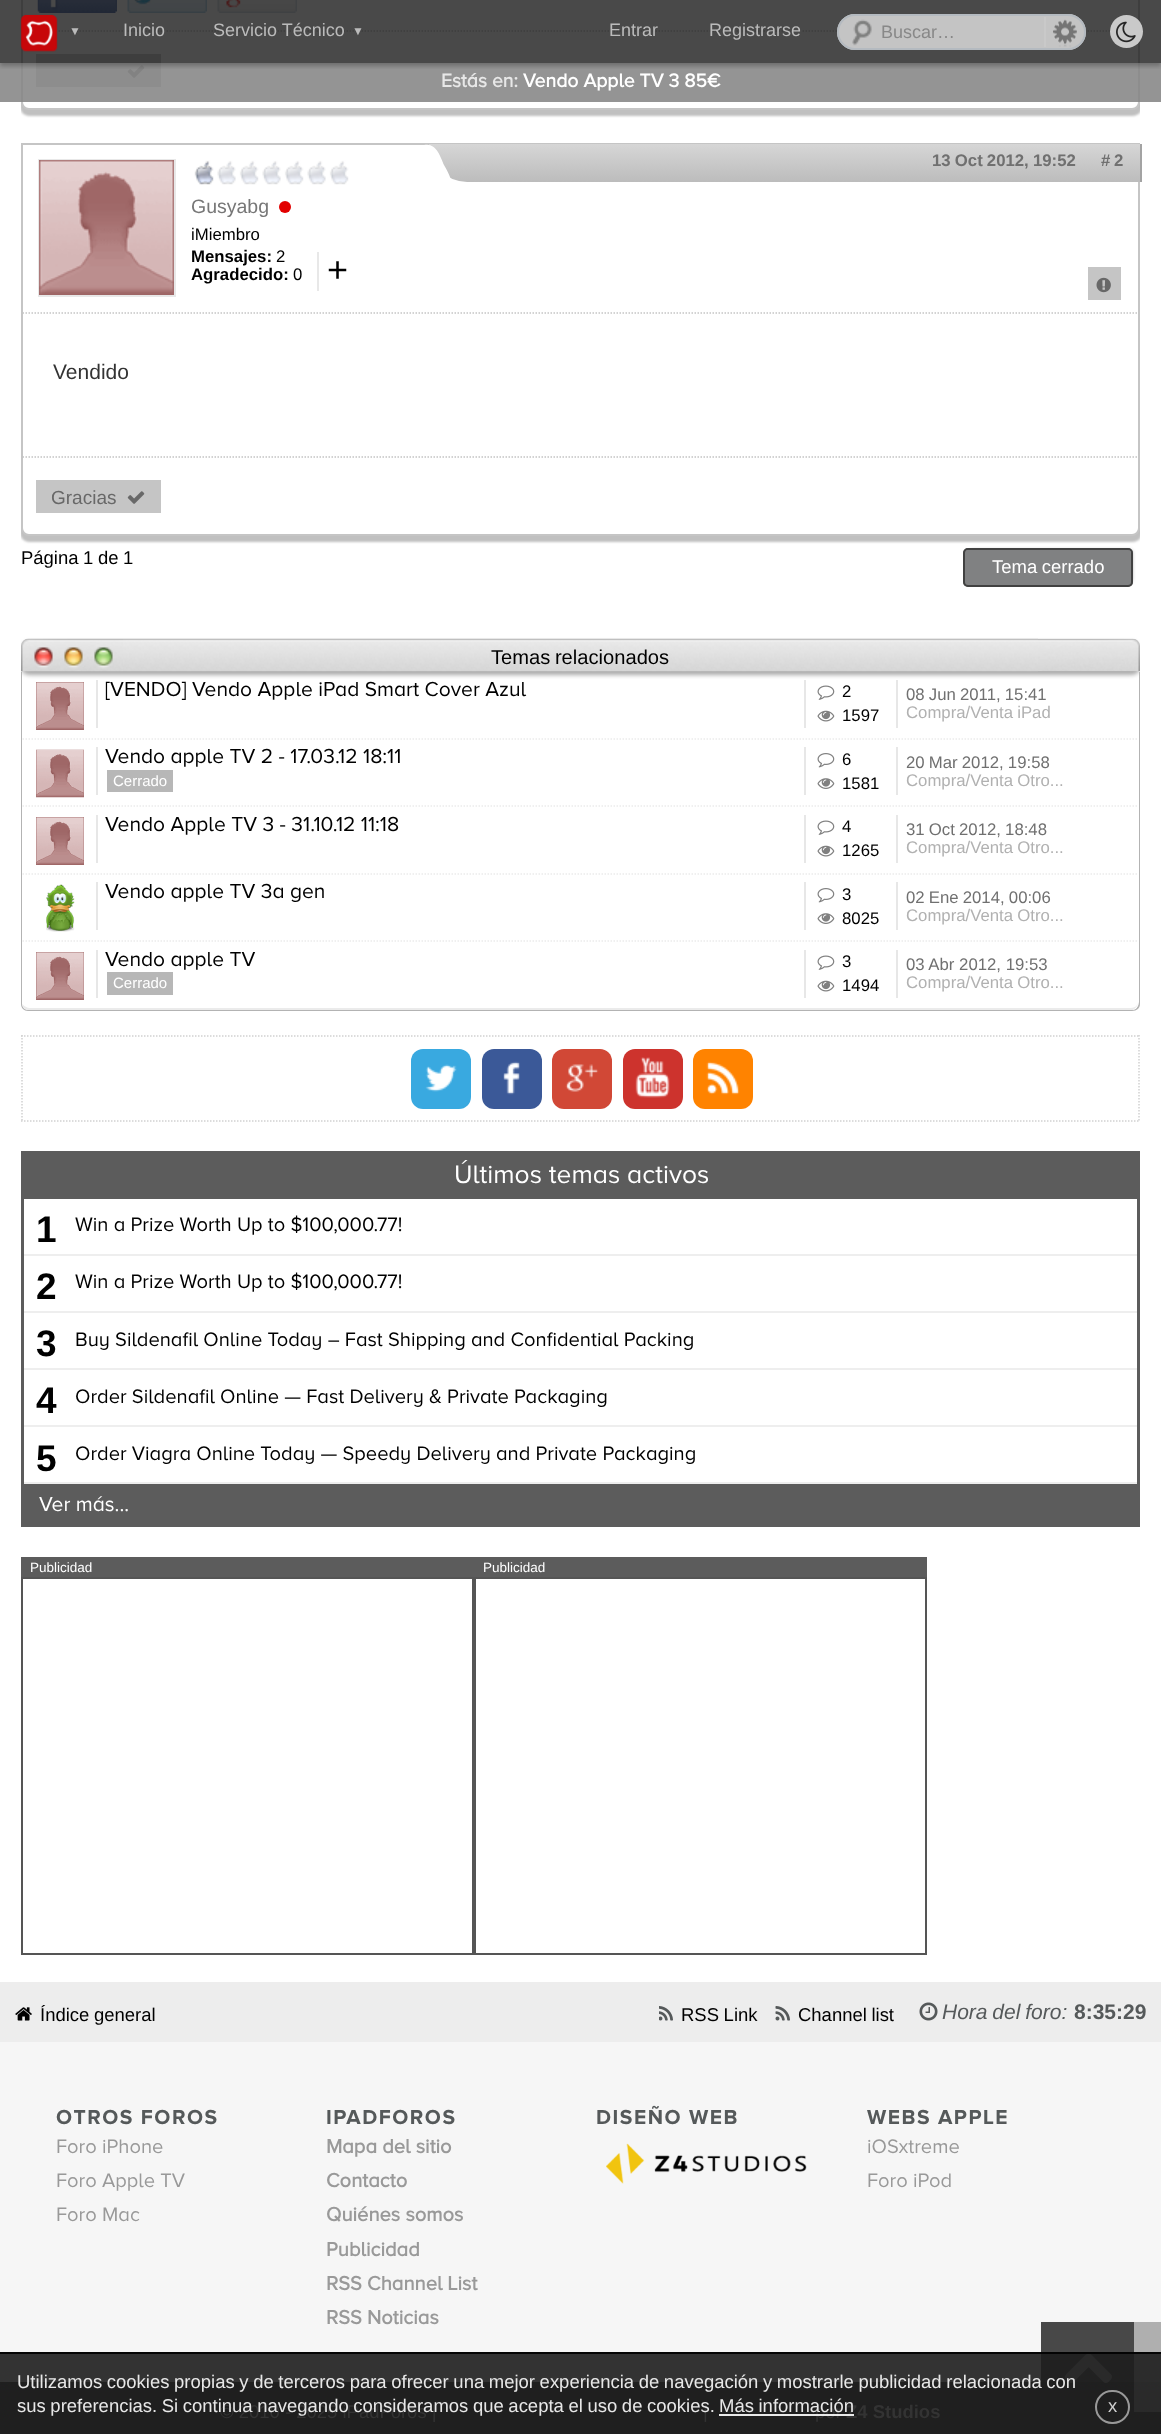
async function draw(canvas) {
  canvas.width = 1161;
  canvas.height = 2434;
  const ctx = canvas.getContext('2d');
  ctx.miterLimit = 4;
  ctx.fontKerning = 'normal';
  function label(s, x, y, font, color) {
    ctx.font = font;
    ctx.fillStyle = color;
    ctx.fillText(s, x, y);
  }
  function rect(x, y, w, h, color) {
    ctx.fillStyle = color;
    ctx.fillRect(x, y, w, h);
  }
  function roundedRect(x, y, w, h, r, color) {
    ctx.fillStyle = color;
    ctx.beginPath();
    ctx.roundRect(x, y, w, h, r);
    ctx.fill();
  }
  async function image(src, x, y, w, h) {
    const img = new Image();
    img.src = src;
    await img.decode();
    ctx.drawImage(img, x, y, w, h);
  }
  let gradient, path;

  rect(0, 0, 1161, 2434, '#fff');
  ctx.save();
  ctx.beginPath();
  ctx.rect(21, 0, 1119, 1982);
  ctx.clip();
  ctx.fillStyle = '#c0c0c0';
  ctx.filter = 'blur(1px)';
  ctx.beginPath();
  ctx.roundRect(20, -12, 1122, 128, 9);
  ctx.fill();
  ctx.filter = 'none';
  ctx.restore();
  path = new Path2D('M22-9H1139V102C1139 106 1136 109 1132 109H29C25 109 22 106 22 102Z');
  ctx.fill(path);
  ctx.strokeStyle = '#c5c5c5';
  ctx.lineWidth = 2;
  ctx.stroke(path);
  await image('assets/img5.png', 37, 0, 80, 13);
  await image('assets/img6.png', 127, 0, 80, 13);
  await image('assets/img7.png', 217, 0, 80, 13);
  path = new Path2D('M22.5 31H1138.5');
  ctx.strokeStyle = '#c3c3c3';
  ctx.lineWidth = 1.5;
  ctx.setLineDash([1.5, 1.5]);
  ctx.stroke(path);
  rect(36, 54, 125, 33, '#c5c5c5');
  await image('assets/img8.png', 127, 65, 18, 13);
  rect(0, 63, 1161, 39, '#858585e0');
  ctx.save();
  ctx.beginPath();
  ctx.rect(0, 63, 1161, 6);
  ctx.clip();
  ctx.fillStyle = '#00000040';
  ctx.filter = 'blur(2px)';
  ctx.beginPath();
  ctx.rect(0, 3, 1161, 63);
  ctx.fill();
  ctx.filter = 'none';
  ctx.restore();
  rect(0, 0, 1161, 63, '#1b1b1bcc');
  await image('assets/img1.png', 20, 14, 38, 38);
  label('▼', 69, 35, '12px Liberation Sans', '#bbb');
  label('Inicio', 123, 36, '18px Liberation Sans', '#bbb');
  label('Servicio Técnico', 213, 36, '18px Liberation Sans', '#bbb');
  label('▼', 352, 35, '12px Liberation Sans', '#bbb');
  label('Entrar', 609, 36, '18px Liberation Sans', '#bbb');
  label('Registrarse', 709, 36, '18px Liberation Sans', '#bbb');
  roundedRect(837, 14, 249, 36, 18, '#c4c4c4');
  await image('assets/img2.png', 852, 19, 20, 27);
  ctx.beginPath();
  ctx.roundRect(838, 15, 247, 34, 17);
  ctx.strokeStyle = '#b4bac0';
  ctx.lineWidth = 2;
  ctx.setLineDash([]);
  ctx.stroke();
  label('Buscar…', 881, 38, '18px Liberation Sans', '#888');
  await image('assets/img3.png', 1053, 19, 24, 28);
  rect(1044, 17, 2, 30, '#c9c9c9');
  ctx.beginPath();
  ctx.arc(1126.5, 31.5, 16.5, 0, 2 * Math.PI);
  ctx.fill();
  await image('assets/img4.png', 1116, 21, 20, 22);
  label('Estás en:', 441, 87, 'bold 19.4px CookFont', '#e7e7e7');
  label('Vendo Apple TV 3 85€', 523, 87, 'bold 19.4px CookFont', '#fff');
  ctx.save();
  ctx.beginPath();
  ctx.rect(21, 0, 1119, 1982);
  ctx.clip();
  ctx.fillStyle = '#c0c0c0';
  ctx.filter = 'blur(1px)';
  ctx.beginPath();
  ctx.roundRect(20, 146, 1122, 396, 9);
  ctx.fill();
  ctx.filter = 'none';
  ctx.restore();
  ctx.beginPath();
  ctx.roundRect(22, 144, 1117, 391, [0, 0, 7, 7]);
  ctx.fill();
  ctx.strokeStyle = '#c5c5c5';
  ctx.stroke();
  gradient = ctx.createLinearGradient(785, 144, 785, 182);
  gradient.addColorStop(0, '#1e5799');
  gradient.addColorStop(0, '#d6d6d6');
  gradient.addColorStop(1, '#bcbcbc');
  ctx.fillStyle = gradient;
  ctx.beginPath();
  ctx.roundRect(429, 144, 713, 38, [0, 0, 0, 38]);
  ctx.fill();
  ctx.fillStyle = '#fff';
  path = new Path2D('M421 146C435 140 440 155 444 165C449 174 458 188 443 195C429 202 424 186 420 176C415 167 406 153 421 146Z');
  ctx.fill(path);
  rect(1140, 144, 2, 38, '#a3a3a3');
  path = new Path2D('M22.5 313H1138.5');
  ctx.lineWidth = 1.5;
  ctx.setLineDash([1.5, 1.5]);
  ctx.stroke(path);
  ctx.wordSpacing = '-0.5px';
  label('13 Oct 2012, 19:52', 932, 166, 'bold 16.75px Liberation Sans', '#707070');
  ctx.wordSpacing = '0px';
  label('#', 1101, 166, 'bold 16.75px Liberation Sans', '#707070');
  label('2', 1114, 166, 'bold 16.75px Liberation Sans', '#707070');
  rect(1088, 267, 33, 33, '#c5c5c5');
  await image('assets/img9.png', 1096, 277, 15, 16);
  ctx.strokeStyle = '#e8e8e8';
  ctx.lineWidth = 2;
  ctx.setLineDash([]);
  ctx.strokeRect(39, 160, 136, 136);
  await image('assets/img10.png', 39, 160, 135, 135);
  await image('assets/img11.png', 194, 160, 155, 25);
  label('Gusyabg', 191, 213, '19.5px Liberation Sans', '#777');
  ctx.fillStyle = '#e20000';
  ctx.beginPath();
  ctx.arc(285, 207, 6, 0, 2 * Math.PI);
  ctx.fill();
  label('iMiembro', 191, 240, '16.75px Liberation Sans', '#000');
  label('Mensajes:', 191, 262, 'bold 16.75px Liberation Sans', '#000');
  label('2', 276, 262, '16.75px Liberation Sans', '#000');
  label('Agradecido:', 191, 280, 'bold 16.75px Liberation Sans', '#000');
  label('0', 293, 280, '16.75px Liberation Sans', '#000');
  rect(317, 252, 2, 39, '#e8e8e8');
  label('+', 327, 282, '36px Liberation Sans', '#000');
  label('Vendido', 53, 379, '21px Liberation Sans', '#333');
  path = new Path2D('M22.5 457H1138.5');
  ctx.strokeStyle = '#c3c3c3';
  ctx.lineWidth = 1.5;
  ctx.setLineDash([1.5, 1.5]);
  ctx.stroke(path);
  rect(36, 480, 125, 33, '#c5c5c5');
  label('Gracias', 51, 504, '19px Liberation Sans', '#686868');
  await image('assets/img8.png', 127, 491, 18, 13);
  label('Página', 21, 564, '18.48px Liberation Sans', '#000');
  label('1', 83, 564, '18.48px Liberation Sans', '#000');
  label('de', 98, 564, '18.48px Liberation Sans', '#000');
  label('1', 123, 564, '18.48px Liberation Sans', '#000');
  ctx.fillStyle = '#000000cc';
  ctx.filter = 'blur(2px)';
  ctx.beginPath();
  ctx.rect(971, 551, 160, 30);
  ctx.fill();
  ctx.filter = 'none';
  roundedRect(963, 548, 170, 39, 5, '#808182');
  ctx.fillStyle = '#acadae';
  path = new Path2D('M968 550H1128C1130 550 1131 552 1131 554V552C1131 550 1130 549 1128 549H968C967 549 965 550 965 551Z');
  ctx.fill(path);
  ctx.beginPath();
  ctx.roundRect(964, 549, 168, 37, 4);
  ctx.strokeStyle = '#414141';
  ctx.lineWidth = 2;
  ctx.setLineDash([]);
  ctx.stroke();
  ctx.wordSpacing = '-0.5px';
  label('Tema cerrado', 992, 573, '18.48px Liberation Sans', '#fff');
  ctx.fillStyle = '#b3b3b3';
  path = new Path2D('M21 672H1140V1004C1140 1008 1137 1011 1132 1011H28C24 1011 21 1008 21 1004ZM22 672H1138V1004C1138 1007 1136 1010 1132 1010H28C25 1010 22 1007 22 1004Z');
  ctx.fill(path, 'evenodd');
  rect(1138, 672, 1, 270, '#fff');
  ctx.save();
  ctx.beginPath();
  ctx.rect(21, 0, 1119, 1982);
  ctx.clip();
  ctx.fillStyle = '#aaa';
  ctx.filter = 'blur(2px)';
  ctx.beginPath();
  ctx.roundRect(21, 642, 1119, 33, 8);
  ctx.fill();
  ctx.filter = 'none';
  ctx.restore();
  await image('assets/img12.png', 21, 638, 102, 34);
  await image('assets/img13.png', 1038, 638, 102, 34);
  await image('assets/img14.png', 123, 638, 915, 34);
  ctx.wordSpacing = '-1px';
  label('Temas relacionados', 491, 664, '20.15px Liberation Sans', '#000');
  path = new Path2D('M22.5 739H1138.5');
  ctx.strokeStyle = '#ebebeb';
  ctx.lineWidth = 1.5;
  ctx.setLineDash([1.5, 1.5]);
  ctx.stroke(path);
  await image('assets/img15.png', 36, 682, 48, 48);
  rect(96, 680, 2, 48, '#e7e7e7');
  ctx.wordSpacing = '0px';
  label('[VENDO] Vendo Apple iPad Smart Cover Azul', 105, 696, '21px CookFont', '#000');
  rect(804, 680, 2, 48, '#e7e7e7');
  await image('assets/img16.png', 817, 685, 18, 15);
  label('2', 842, 697, '16.75px Liberation Sans', '#000');
  await image('assets/img17.png', 817, 710, 18, 12);
  label('1597', 842, 721, '16.75px Liberation Sans', '#000');
  rect(896, 680, 2, 48, '#e7e7e7');
  ctx.wordSpacing = '-0.5px';
  label('08 Jun 2011, 15:41', 906, 700, '16.75px Liberation Sans', '#707070');
  label('Compra/Venta iPad', 906, 718, '16.75px Liberation Sans', '#b1b1b1');
  path = new Path2D('M22.5 806H1138.5');
  ctx.stroke(path);
  await image('assets/img18.png', 36, 749, 48, 49);
  rect(96, 747, 2, 48, '#e7e7e7');
  ctx.wordSpacing = '0px';
  label('Vendo apple TV 2 - 17.03.12 18:11', 105, 763, '21px CookFont', '#000');
  rect(107, 770, 66, 22, '#b7b7b7');
  label('Cerrado', 113, 786, '15px Liberation Sans', '#fff');
  rect(804, 747, 2, 48, '#e7e7e7');
  await image('assets/img19.png', 817, 753, 18, 15);
  label('6', 842, 765, '16.75px Liberation Sans', '#000');
  await image('assets/img20.png', 817, 778, 18, 11);
  label('1581', 842, 789, '16.75px Liberation Sans', '#000');
  rect(896, 747, 2, 48, '#e7e7e7');
  ctx.wordSpacing = '-0.5px';
  label('20 Mar 2012, 19:58', 906, 768, '16.75px Liberation Sans', '#707070');
  label('Compra/Venta Otro...', 906, 786, '16.75px Liberation Sans', '#b1b1b1');
  path = new Path2D('M22.5 874H1138.5');
  ctx.stroke(path);
  await image('assets/img21.png', 36, 817, 48, 48);
  rect(96, 815, 2, 48, '#e7e7e7');
  ctx.wordSpacing = '0px';
  label('Vendo Apple TV 3 - 31.10.12 11:18', 105, 831, '21px CookFont', '#000');
  rect(804, 815, 2, 48, '#e7e7e7');
  await image('assets/img16.png', 817, 820, 18, 15);
  label('4', 842, 832, '16.75px Liberation Sans', '#000');
  await image('assets/img17.png', 817, 845, 18, 12);
  label('1265', 842, 856, '16.75px Liberation Sans', '#000');
  rect(896, 815, 2, 48, '#e7e7e7');
  ctx.wordSpacing = '-0.5px';
  label('31 Oct 2012, 18:48', 906, 835, '16.75px Liberation Sans', '#707070');
  label('Compra/Venta Otro...', 906, 853, '16.75px Liberation Sans', '#b1b1b1');
  path = new Path2D('M22.5 941H1138.5');
  ctx.stroke(path);
  await image('assets/img22.png', 46, 884, 29, 48);
  rect(96, 882, 2, 48, '#e7e7e7');
  ctx.wordSpacing = '0px';
  label('Vendo apple TV 3a gen', 105, 898, '21px CookFont', '#000');
  rect(804, 882, 2, 48, '#e7e7e7');
  await image('assets/img19.png', 817, 888, 18, 15);
  label('3', 842, 900, '16.75px Liberation Sans', '#000');
  await image('assets/img20.png', 817, 913, 18, 11);
  label('8025', 842, 924, '16.75px Liberation Sans', '#000');
  rect(896, 882, 2, 48, '#e7e7e7');
  ctx.wordSpacing = '-0.5px';
  label('02 Ene 2014, 00:06', 906, 903, '16.75px Liberation Sans', '#707070');
  label('Compra/Venta Otro...', 906, 921, '16.75px Liberation Sans', '#b1b1b1');
  ctx.fillStyle = '#fff';
  ctx.beginPath();
  ctx.roundRect(23, 942, 1116, 68, [0, 0, 8, 8]);
  ctx.fill();
  ctx.fillStyle = '#ebebeb';
  path = new Path2D('M1133 1010C1136 1008 1138 1005 1138 1002C1138 1005 1135 1008 1131 1008H30C27 1008 24 1006 22 1004C22 1006 25 1009 27 1010Z');
  ctx.fill(path);
  await image('assets/img23.png', 36, 952, 48, 48);
  rect(96, 950, 2, 48, '#e7e7e7');
  ctx.wordSpacing = '0px';
  label('Vendo apple TV', 105, 966, '21px CookFont', '#000');
  rect(107, 972, 66, 23, '#b7b7b7');
  label('Cerrado', 113, 988, '15px Liberation Sans', '#fff');
  rect(804, 950, 2, 48, '#e7e7e7');
  await image('assets/img16.png', 817, 955, 18, 15);
  label('3', 842, 967, '16.75px Liberation Sans', '#000');
  await image('assets/img17.png', 817, 980, 18, 12);
  label('1494', 842, 991, '16.75px Liberation Sans', '#000');
  rect(896, 950, 2, 48, '#e7e7e7');
  label('03 Abr 2012, 19:53', 906, 970, '16.75px Liberation Sans', '#707070');
  ctx.wordSpacing = '-0.5px';
  label('Compra/Venta Otro...', 906, 988, '16.75px Liberation Sans', '#b1b1b1');
  path = new Path2D('M21 1036H1140');
  ctx.strokeStyle = '#d1d1d1';
  ctx.stroke(path);
  path = new Path2D('M1139 1035V1122');
  ctx.stroke(path);
  path = new Path2D('M21 1121H1140');
  ctx.stroke(path);
  path = new Path2D('M22 1035V1122');
  ctx.stroke(path);
  roundedRect(411, 1049, 60, 60, 12, '#39a9e0');
  await image('assets/img24.png', 425, 1064, 32, 28);
  roundedRect(482, 1049, 60, 60, 12, '#3b5998');
  await image('assets/img25.png', 503, 1061, 17, 34);
  roundedRect(552, 1049, 60, 60, 12, '#d14836');
  await image('assets/img26.png', 565, 1064, 34, 28);
  roundedRect(623, 1049, 60, 60, 12, '#cd332d');
  await image('assets/img27.png', 635, 1057, 35, 41);
  roundedRect(693, 1049, 60, 60, 12, '#ff8300');
  await image('assets/img28.png', 706, 1061, 34, 34);
  rect(21, 1151, 1119, 48, '#5c5c5c');
  ctx.wordSpacing = '0px';
  label('Últimos temas activos', 454, 1183, '26.4px CookFont', '#fff');
  rect(1137, 1196, 3, 331, '#5c5c5c');
  rect(21, 1526, 1119, 1, '#5c5c5c');
  rect(21, 1196, 3, 331, '#5c5c5c');
  rect(24, 1254, 1113, 2, '#eee');
  label('1', 36, 1242, 'bold 37px Liberation Sans', '#000');
  label('Win a Prize Worth Up to $100,000.77!', 75, 1231, '20.15px CookFont', '#000');
  rect(24, 1311, 1113, 2, '#eee');
  label('2', 36, 1299, 'bold 37px Liberation Sans', '#000');
  label('Win a Prize Worth Up to $100,000.77!', 75, 1288, '20.15px CookFont', '#000');
  rect(24, 1368, 1113, 2, '#eee');
  label('3', 36, 1356, 'bold 37px Liberation Sans', '#000');
  label('Buy Sildenafil Online Today – Fast Shipping and Confidential Packing', 75, 1346, '20.15px CookFont', '#000');
  rect(24, 1425, 1113, 2, '#eee');
  label('4', 36, 1413, 'bold 37px Liberation Sans', '#000');
  label('Order Sildenafil Online — Fast Delivery & Private Packaging', 75, 1403, '20.15px CookFont', '#000');
  rect(24, 1482, 1113, 2, '#eee');
  label('5', 36, 1471, 'bold 37px Liberation Sans', '#000');
  label('Order Viagra Online Today — Speedy Delivery and Private Packaging', 75, 1460, '20.15px CookFont', '#000');
  rect(24, 1484, 1113, 42, '#5c5c5c');
  label('Ver más...', 39, 1511, '21px CookFont', '#fff');
  rect(21, 1557, 906, 20, '#5c5c5c');
  label('Publicidad', 30, 1572, '13.5px Liberation Sans', '#fff');
  ctx.strokeStyle = '#555';
  ctx.lineWidth = 2;
  ctx.setLineDash([]);
  ctx.strokeRect(22, 1578, 451, 376);
  label('Publicidad', 483, 1572, '13.5px Liberation Sans', '#fff');
  ctx.strokeRect(475, 1578, 451, 376);
  rect(0, 2042, 1161, 310, '#f6f6f6');
  rect(0, 2352, 1041, 30, '#333');
  rect(1134, 2322, 27, 30, '#afafaf');
  rect(1134, 2352, 27, 30, '#2c2c2c');
  rect(1041, 2322, 93, 30, '#484848');
  rect(1041, 2352, 93, 30, '#212121');
  rect(0, 1982, 1161, 60, '#ededed');
  await image('assets/img29.png', 15, 2007, 17, 14);
  ctx.wordSpacing = '-0.5px';
  label('Índice general', 40, 2021, '18.48px Liberation Sans', '#000');
  await image('assets/img30.png', 659, 2006, 14, 15);
  label('RSS Link', 681, 2021, '18.48px Liberation Sans', '#000');
  await image('assets/img31.png', 775, 2006, 15, 15);
  label('Channel list', 798, 2021, '18.48px Liberation Sans', '#000');
  await image('assets/img32.png', 919, 2002, 19, 19);
  ctx.wordSpacing = '-1px';
  label('Hora del foro:', 942, 2019, 'italic 21px Liberation Sans', '#55595a');
  ctx.wordSpacing = '0px';
  label('8:35:29', 1074, 2019, 'bold 21px Liberation Sans', '#55595a');
  ctx.letterSpacing = '1.5px';
  label('OTROS FOROS', 56, 2124, 'bold 21px "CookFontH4"', '#55595a');
  ctx.letterSpacing = '0px';
  label('Foro iPhone', 56, 2153, '20.15px CookFont', '#999');
  label('Foro Apple TV', 56, 2187, '20.15px CookFont', '#999');
  label('Foro Mac', 56, 2221, '20.15px CookFont', '#999');
  ctx.letterSpacing = '1.5px';
  label('IPADFOROS', 326, 2124, 'bold 21px "CookFontH4"', '#55595a');
  ctx.letterSpacing = '0px';
  label('Mapa del sitio', 326, 2153, 'bold 20.15px CookFont', '#999');
  label('Contacto', 326, 2187, 'bold 20.15px CookFont', '#999');
  label('Quiénes somos', 326, 2221, 'bold 20.15px CookFont', '#999');
  label('Publicidad', 326, 2256, 'bold 20.15px CookFont', '#999');
  label('RSS Channel List', 326, 2290, 'bold 20.15px CookFont', '#999');
  label('RSS Noticias', 326, 2324, 'bold 20.15px CookFont', '#999');
  ctx.letterSpacing = '1.5px';
  label('DISEÑO WEB', 596, 2124, 'bold 21px "CookFontH4"', '#55595a');
  await image('assets/img33.png', 606, 2143, 201, 41);
  label('WEBS APPLE', 867, 2124, 'bold 21px "CookFontH4"', '#55595a');
  ctx.letterSpacing = '0px';
  label('iOSxtreme', 867, 2153, '20.15px CookFont', '#999');
  label('Foro iPod', 867, 2187, '20.15px CookFont', '#999');
  rect(0, 2382, 1161, 52, '#1f1f1f');
  rect(1134, 2382, 27, 30, '#2a2a2a');
  label('© 2010 - 2025 iPadForos |', 220, 2418, '18.48px Liberation Sans', '#333');
  label('|', 703, 2418, '18.48px Liberation Sans', '#333');
  label('por', 815, 2418, '18.48px Liberation Sans', '#333');
  label('Z4 Studios', 846, 2418, 'bold 18.48px Liberation Sans', '#333');
  await image('assets/img34.png', 1065, 2353, 47, 30);
  rect(0, 2352, 1161, 2, '#000000e6');
  ctx.wordSpacing = '-0.5px';
  label('Utilizamos cookies propias y de terceros para ofrecer una mejor experiencia de navegación y mostrarle publicidad relacionada con', 17, 2388, '18.48px Liberation Sans', '#e7e7e7');
  label('sus preferencias. Si continua navegando consideramos que acepta el uso de cookies.', 17, 2412, '18.48px Liberation Sans', '#e7e7e7');
  label('Más información', 719, 2412, '18.48px Liberation Sans', '#e7e7e7');
  rect(719, 2414, 135, 2, '#ffffffe6');
  ctx.beginPath();
  ctx.roundRect(1096, 2391, 33, 32, 16);
  ctx.strokeStyle = '#999';
  ctx.stroke();
  ctx.wordSpacing = '0px';
  label('x', 1108, 2412, '18.48px Liberation Sans', '#d0d0d0');
}

draw(document.querySelector('canvas'));
